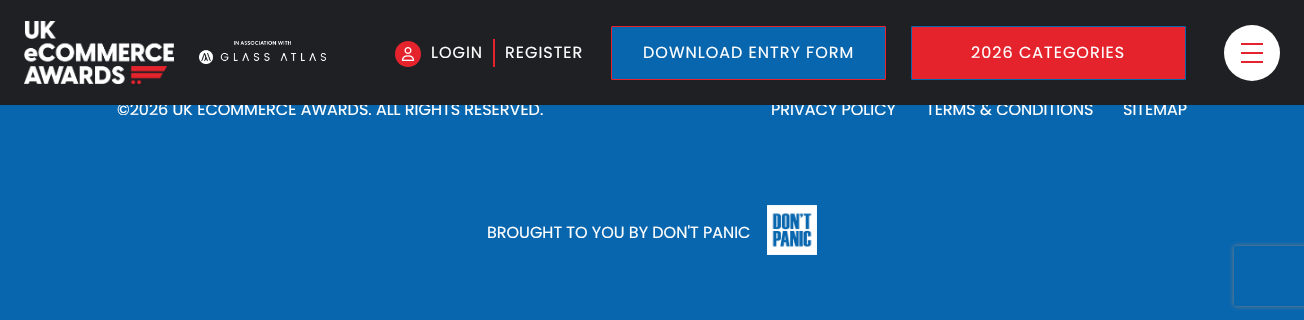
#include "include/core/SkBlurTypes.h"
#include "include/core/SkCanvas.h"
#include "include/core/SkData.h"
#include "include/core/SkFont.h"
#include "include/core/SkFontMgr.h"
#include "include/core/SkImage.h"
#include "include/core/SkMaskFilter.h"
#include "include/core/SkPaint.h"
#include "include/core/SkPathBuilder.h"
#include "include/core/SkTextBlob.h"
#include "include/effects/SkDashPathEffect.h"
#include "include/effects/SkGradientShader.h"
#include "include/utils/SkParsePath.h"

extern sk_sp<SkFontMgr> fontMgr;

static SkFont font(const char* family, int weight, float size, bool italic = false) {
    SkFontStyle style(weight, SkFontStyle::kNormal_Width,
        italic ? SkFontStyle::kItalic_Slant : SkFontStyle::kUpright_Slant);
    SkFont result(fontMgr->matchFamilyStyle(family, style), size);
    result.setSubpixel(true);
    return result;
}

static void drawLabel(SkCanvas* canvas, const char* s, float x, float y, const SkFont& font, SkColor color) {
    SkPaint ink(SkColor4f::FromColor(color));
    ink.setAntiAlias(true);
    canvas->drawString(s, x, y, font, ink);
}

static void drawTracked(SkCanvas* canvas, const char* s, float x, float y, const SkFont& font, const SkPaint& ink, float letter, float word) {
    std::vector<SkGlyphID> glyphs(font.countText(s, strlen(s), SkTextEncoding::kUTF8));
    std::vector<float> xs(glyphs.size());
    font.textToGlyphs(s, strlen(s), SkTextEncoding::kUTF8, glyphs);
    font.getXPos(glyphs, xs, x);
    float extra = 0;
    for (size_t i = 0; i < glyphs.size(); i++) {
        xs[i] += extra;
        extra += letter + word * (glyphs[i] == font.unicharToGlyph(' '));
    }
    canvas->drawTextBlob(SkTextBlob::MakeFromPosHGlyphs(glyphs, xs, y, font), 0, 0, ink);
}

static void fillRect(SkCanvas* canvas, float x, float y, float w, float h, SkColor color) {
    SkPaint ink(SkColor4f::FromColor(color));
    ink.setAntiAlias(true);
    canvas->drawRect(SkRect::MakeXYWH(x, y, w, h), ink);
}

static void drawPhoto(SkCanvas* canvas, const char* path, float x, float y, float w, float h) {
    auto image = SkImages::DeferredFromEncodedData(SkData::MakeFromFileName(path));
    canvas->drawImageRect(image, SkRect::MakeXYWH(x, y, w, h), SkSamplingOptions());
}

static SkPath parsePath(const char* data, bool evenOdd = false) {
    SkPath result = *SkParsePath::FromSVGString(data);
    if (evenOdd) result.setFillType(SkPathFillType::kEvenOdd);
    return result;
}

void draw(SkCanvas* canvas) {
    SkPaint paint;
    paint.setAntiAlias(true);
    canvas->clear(0xFF0866AE);
    SkFont font1 = font("Poppins", 400, 16);
    drawLabel(canvas, "©2026 UK ECOMMERCE AWARDS. ALL RIGHTS RESERVED.", 117, 115, font1, 0xFFFFFFFF);
    drawLabel(canvas, "PRIVACY POLICY", 771, 115, font1, 0xFFFFFFFF);
    drawLabel(canvas, "TERMS & CONDITIONS", 926, 115, font1, 0xFFFFFFFF);
    drawLabel(canvas, "SITEMAP", 1123, 115, font1, 0xFFFFFFFF);
    fillRect(canvas, 0, 0, 1304, 105, 0xFF1E2024);
    drawPhoto(canvas, "assets/img1.png", 24, 21, 150, 63);
    drawPhoto(canvas, "assets/img2.png", 199, 41, 127, 23);
    paint.setColor(0xFFE5232C);
    canvas->drawCircle(408, 54, 13, paint);
    drawPhoto(canvas, "assets/img3.png", 401, 47, 14, 14);
    fillRect(canvas, 493, 39, 2, 28, 0xFFE5232C);
    paint.setColor(0xFFFFFFFF);
    drawTracked(canvas, "LOGIN", 431, 58, font1, paint, 1, 0);
    drawTracked(canvas, "REGISTER", 505, 58, font1, paint, 1, 0);
    paint.setColor(0xFF0866AE);
    canvas->drawRoundRect(SkRect::MakeXYWH(611.5f, 26.5f, 274, 53), 0.5f, 0.5f, paint);
    paint.setStroke(true);
    paint.setStrokeWidth(1);
    paint.setColor(0xFFE5232C);
    canvas->drawRoundRect(SkRect::MakeXYWH(611.5f, 26.5f, 274, 53), 0.5f, 0.5f, paint);
    paint.setStroke(false);
    paint.setColor(0xFFFFFFFF);
    drawTracked(canvas, "DOWNLOAD ENTRY FORM", 643, 58, font1, paint, 1, 0);
    paint.setColor(0xFFE5232C);
    canvas->drawRoundRect(SkRect::MakeXYWH(911.5f, 26.5f, 274, 53), 0.5f, 0.5f, paint);
    paint.setStroke(true);
    paint.setColor(0xFF0866AE);
    canvas->drawRoundRect(SkRect::MakeXYWH(911.5f, 26.5f, 274, 53), 0.5f, 0.5f, paint);
    paint.setStroke(false);
    paint.setColor(0xFFFFFFFF);
    drawTracked(canvas, "2026 CATEGORIES", 971, 58, font1, paint, 1, 0);
    canvas->drawCircle(1252, 53, 28, paint);
    fillRect(canvas, 1241, 43, 22, 2, 0xFFE5232C);
    fillRect(canvas, 1241, 52, 22, 2, 0xFFE5232C);
    fillRect(canvas, 1241, 61, 22, 2, 0xFFE5232C);
    drawLabel(canvas, "BROUGHT TO YOU BY DON'T PANIC", 487, 238, font1, 0xFFFFFFFF);
    drawPhoto(canvas, "assets/img4.png", 767, 205, 50, 50);
    canvas->save();
    canvas->clipPath(parsePath("M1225 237H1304V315H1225ZM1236 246H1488C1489 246 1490 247 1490 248V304C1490 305 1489 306 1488 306H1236C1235 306 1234 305 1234 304V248C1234 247 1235 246 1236 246Z", true), true);
    paint.setColor(0xFF808080);
    paint.setMaskFilter(SkMaskFilter::MakeBlur(kNormal_SkBlurStyle, 2.5f));
    canvas->drawRoundRect(SkRect::MakeXYWH(1234, 246, 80, 60), 2, 2, paint);
    paint.setMaskFilter(nullptr);
    canvas->restore();
}
